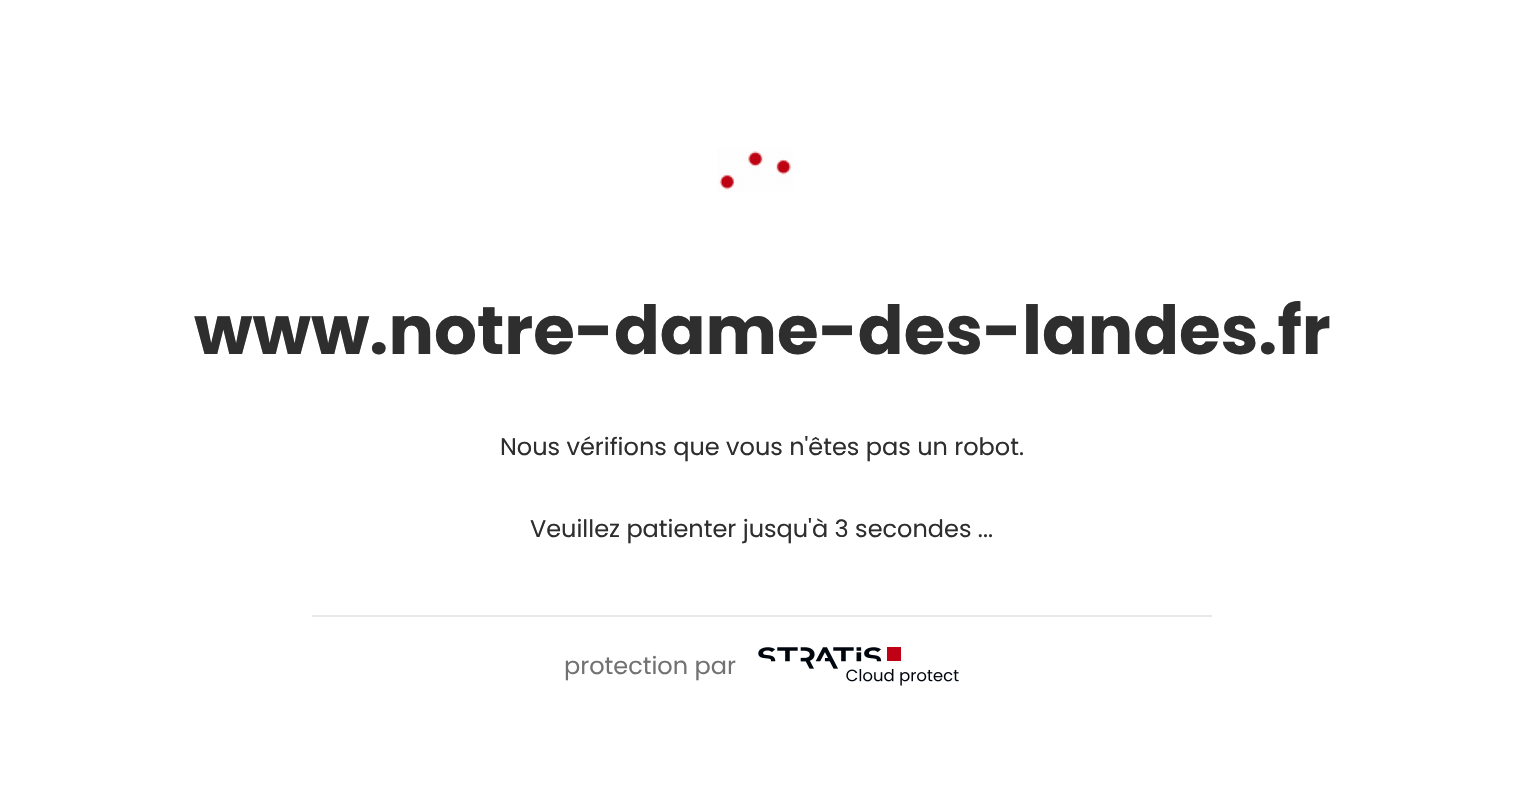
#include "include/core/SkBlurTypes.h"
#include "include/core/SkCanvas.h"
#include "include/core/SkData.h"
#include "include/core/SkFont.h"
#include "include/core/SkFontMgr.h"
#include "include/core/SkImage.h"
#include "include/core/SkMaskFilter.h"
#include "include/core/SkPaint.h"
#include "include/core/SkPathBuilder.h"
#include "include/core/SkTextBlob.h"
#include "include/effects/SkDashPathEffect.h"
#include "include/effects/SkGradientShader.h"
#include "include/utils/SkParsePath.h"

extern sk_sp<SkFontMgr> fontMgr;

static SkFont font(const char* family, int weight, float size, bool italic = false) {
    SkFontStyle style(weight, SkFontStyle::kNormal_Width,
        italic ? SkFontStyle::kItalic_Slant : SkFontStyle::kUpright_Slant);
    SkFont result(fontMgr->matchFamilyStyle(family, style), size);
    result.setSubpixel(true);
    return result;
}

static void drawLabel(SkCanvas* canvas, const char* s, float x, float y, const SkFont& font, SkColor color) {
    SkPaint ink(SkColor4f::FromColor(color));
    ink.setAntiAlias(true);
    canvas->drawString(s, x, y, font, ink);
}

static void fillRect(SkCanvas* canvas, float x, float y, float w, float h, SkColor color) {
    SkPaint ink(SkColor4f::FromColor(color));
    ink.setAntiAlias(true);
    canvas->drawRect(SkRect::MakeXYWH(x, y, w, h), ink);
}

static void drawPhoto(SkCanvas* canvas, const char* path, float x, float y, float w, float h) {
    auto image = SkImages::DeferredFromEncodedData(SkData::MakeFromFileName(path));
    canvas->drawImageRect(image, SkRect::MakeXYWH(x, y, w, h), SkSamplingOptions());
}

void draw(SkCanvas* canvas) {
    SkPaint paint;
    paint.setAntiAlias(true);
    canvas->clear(0xFFFFFFFF);
    drawPhoto(canvas, "assets/img1.png", 717, 149, 76, 43);
    SkFont font1 = font("Poppins", 700, 67.5f);
    drawLabel(canvas, "www.notre-dame-des-landes.fr", 194, 354, font1, 0xFF2E2E2E);
    SkFont font2 = font("Poppins", 400, 24);
    drawLabel(canvas, "Nous vérifions que vous n'êtes pas un robot.", 500, 455, font2, 0xFF2E2E2E);
    drawLabel(canvas, "Veuillez patienter jusqu'à 3 secondes ...", 530, 537, font2, 0xFF2E2E2E);
    fillRect(canvas, 312, 615, 900, 2, 0xFFE8E8E8);
    drawLabel(canvas, "protection par", 564, 674, font2, 0xFF727272);
    drawPhoto(canvas, "assets/img2.png", 758, 647, 201, 39);
}
